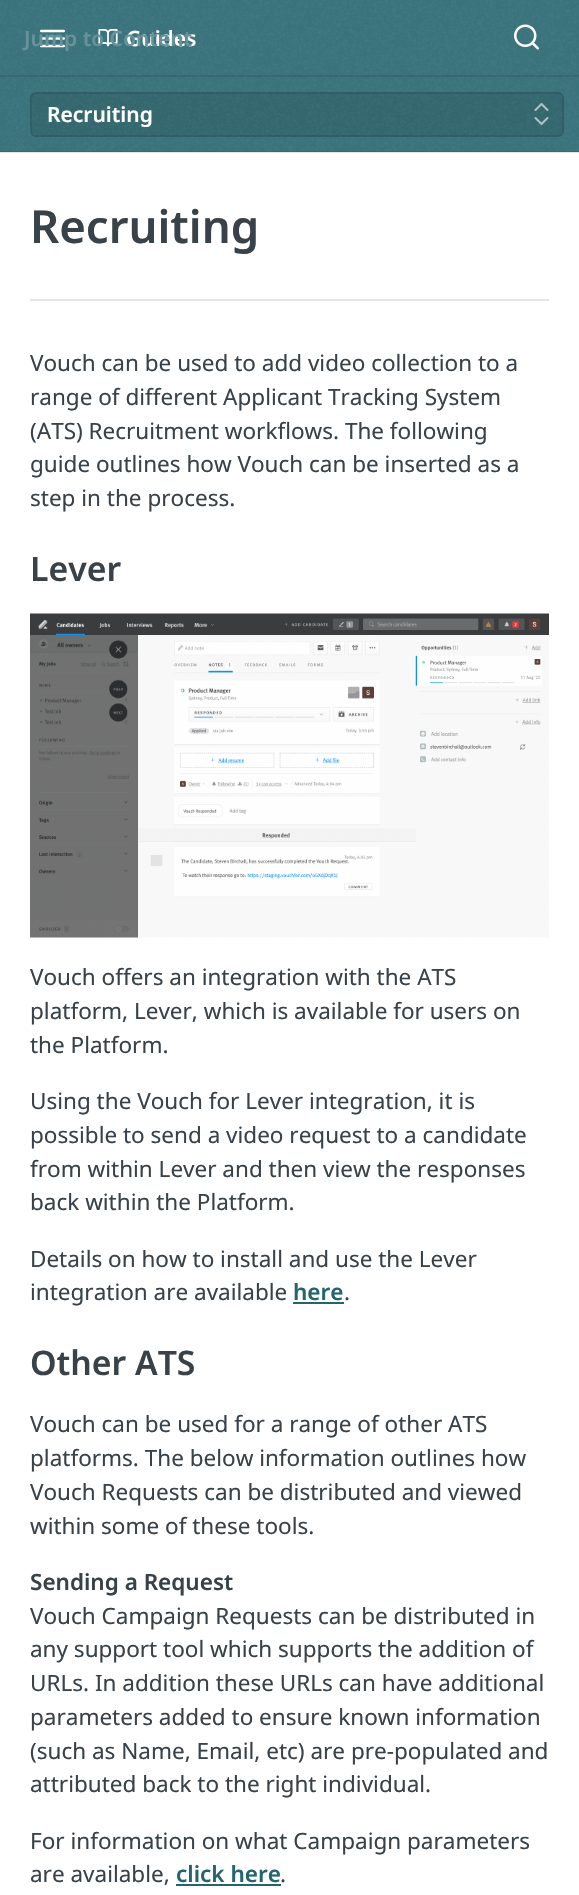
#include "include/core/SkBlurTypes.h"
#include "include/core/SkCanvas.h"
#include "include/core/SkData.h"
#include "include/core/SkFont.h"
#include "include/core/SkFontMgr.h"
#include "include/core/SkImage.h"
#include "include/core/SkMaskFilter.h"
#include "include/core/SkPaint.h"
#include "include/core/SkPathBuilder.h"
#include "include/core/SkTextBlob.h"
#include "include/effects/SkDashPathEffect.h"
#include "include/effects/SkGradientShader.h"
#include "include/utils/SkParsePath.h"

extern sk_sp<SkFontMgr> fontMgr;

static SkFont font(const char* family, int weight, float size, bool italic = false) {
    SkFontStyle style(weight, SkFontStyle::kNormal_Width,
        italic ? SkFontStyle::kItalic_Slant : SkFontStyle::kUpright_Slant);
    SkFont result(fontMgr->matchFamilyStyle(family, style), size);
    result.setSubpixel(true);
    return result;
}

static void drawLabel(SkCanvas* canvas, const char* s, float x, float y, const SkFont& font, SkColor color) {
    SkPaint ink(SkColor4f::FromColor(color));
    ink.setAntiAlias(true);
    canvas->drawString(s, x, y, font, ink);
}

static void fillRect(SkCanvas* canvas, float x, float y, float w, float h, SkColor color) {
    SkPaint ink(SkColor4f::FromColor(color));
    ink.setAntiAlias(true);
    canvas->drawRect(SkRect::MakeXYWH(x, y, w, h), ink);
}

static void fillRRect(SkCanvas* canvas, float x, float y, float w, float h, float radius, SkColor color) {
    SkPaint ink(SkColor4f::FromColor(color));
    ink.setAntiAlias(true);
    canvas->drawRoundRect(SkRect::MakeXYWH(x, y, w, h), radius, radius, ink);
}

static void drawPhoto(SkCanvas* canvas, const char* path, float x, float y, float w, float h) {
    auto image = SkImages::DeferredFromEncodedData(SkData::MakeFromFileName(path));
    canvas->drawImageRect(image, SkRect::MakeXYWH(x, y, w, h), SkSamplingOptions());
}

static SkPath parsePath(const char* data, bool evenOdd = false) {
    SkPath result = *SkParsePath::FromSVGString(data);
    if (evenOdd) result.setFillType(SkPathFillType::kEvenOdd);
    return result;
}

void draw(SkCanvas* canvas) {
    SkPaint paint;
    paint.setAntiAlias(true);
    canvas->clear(0xFFFFFFFF);
    fillRect(canvas, 0, 152, 579, 1, 0xFFE6E6E6);
    fillRect(canvas, 0, 0, 579, 152, 0xFF23646F);
    drawPhoto(canvas, "assets/img1.png", 0, 0, 579, 152);
    fillRect(canvas, 0, 75, 579, 2, 0x1A000000);
    drawPhoto(canvas, "assets/img3.png", 40, 29, 25, 19);
    drawPhoto(canvas, "assets/img4.png", 98, 29, 20, 18);
    SkFont font1 = font("Noto Sans", 600, 21);
    drawLabel(canvas, "Guides", 126, 46, font1, 0xFFFFFFFF);
    drawLabel(canvas, "Jump to Content", 24, 46, font1, 0xFF67929A);
    drawPhoto(canvas, "assets/img2.png", 514, 24, 25, 26);
    fillRRect(canvas, 30, 92, 534, 45, 6, 0x1A000000);
    paint.setStroke(true);
    paint.setStrokeWidth(2);
    paint.setColor(0x1A000000);
    canvas->drawRoundRect(SkRect::MakeXYWH(31, 93, 532, 43), 5, 5, paint);
    drawLabel(canvas, "Recruiting", 47, 122, font1, 0xFFFFFFFF);
    paint.setStrokeCap(SkPaint::kRound_Cap);
    paint.setStrokeJoin(SkPaint::kRound_Join);
    paint.setColor(0x99FFFFFF);
    canvas->drawPath(parsePath("M535.5 118L541.5 124L547.5 118M547.5 110L541.5 104L535.5 110"), paint);
    fillRect(canvas, 30, 299, 519, 2, 0xFFE6E6E6);
    SkFont font2 = font("Noto Sans", 600, 45.5f);
    drawLabel(canvas, "Recruiting", 30, 243, font2, 0xFF384248);
    SkFont font3 = font("Noto Sans", 400, 22.5f);
    drawLabel(canvas, "Vouch can be used to add video collection to a", 30, 371, font3, 0xFF384248);
    drawLabel(canvas, "range of different Applicant Tracking System", 30, 405, font3, 0xFF384248);
    drawLabel(canvas, "(ATS) Recruitment workflows. The following", 30, 439, font3, 0xFF384248);
    drawLabel(canvas, "guide outlines how Vouch can be inserted as a", 30, 472, font3, 0xFF384248);
    drawLabel(canvas, "step in the process.", 30, 506, font3, 0xFF384248);
    SkFont font4 = font("Noto Sans", 600, 33.75f);
    drawLabel(canvas, "Lever", 30, 581, font4, 0xFF384248);
    drawPhoto(canvas, "assets/img5.png", 30, 613, 519, 325);
    drawLabel(canvas, "Vouch offers an integration with the ATS", 30, 985, font3, 0xFF384248);
    drawLabel(canvas, "platform, Lever, which is available for users on", 30, 1019, font3, 0xFF384248);
    drawLabel(canvas, "the Platform.", 30, 1053, font3, 0xFF384248);
    drawLabel(canvas, "Using the Vouch for Lever integration, it is", 30, 1109, font3, 0xFF384248);
    drawLabel(canvas, "possible to send a video request to a candidate", 30, 1143, font3, 0xFF384248);
    drawLabel(canvas, "from within Lever and then view the responses", 30, 1177, font3, 0xFF384248);
    drawLabel(canvas, "back within the Platform.", 30, 1210, font3, 0xFF384248);
    drawLabel(canvas, "Details on how to install and use the Lever", 30, 1267, font3, 0xFF384248);
    drawLabel(canvas, "integration are available", 30, 1300, font3, 0xFF384248);
    SkFont font5 = font("Noto Sans", 600, 22.5f);
    drawLabel(canvas, "here", 293, 1300, font5, 0xFF23646F);
    fillRect(canvas, 293, 1302, 51, 2, 0xFF23646F);
    drawLabel(canvas, ".", 344, 1300, font3, 0xFF384248);
    drawLabel(canvas, "Other ATS", 30, 1375, font4, 0xFF384248);
    drawLabel(canvas, "Vouch can be used for a range of other ATS", 30, 1432, font3, 0xFF384248);
    drawLabel(canvas, "platforms. The below information outlines how", 30, 1466, font3, 0xFF384248);
    drawLabel(canvas, "Vouch Requests can be distributed and viewed", 30, 1500, font3, 0xFF384248);
    drawLabel(canvas, "within some of these tools.", 30, 1534, font3, 0xFF384248);
    drawLabel(canvas, "Sending a Request", 30, 1590, font5, 0xFF384248);
    drawLabel(canvas, "Vouch Campaign Requests can be distributed in", 30, 1624, font3, 0xFF384248);
    drawLabel(canvas, "any support tool which supports the addition of", 30, 1657, font3, 0xFF384248);
    drawLabel(canvas, "URLs. In addition these URLs can have additional", 30, 1691, font3, 0xFF384248);
    drawLabel(canvas, "parameters added to ensure known information", 30, 1725, font3, 0xFF384248);
    drawLabel(canvas, "(such as Name, Email, etc) are pre-populated and", 30, 1759, font3, 0xFF384248);
    drawLabel(canvas, "attributed back to the right individual.", 30, 1792, font3, 0xFF384248);
    drawLabel(canvas, "For information on what Campaign parameters", 30, 1849, font3, 0xFF384248);
    drawLabel(canvas, "are available,", 30, 1882, font3, 0xFF384248);
    drawLabel(canvas, "click here", 176, 1882, font5, 0xFF23646F);
    fillRect(canvas, 176, 1884, 105, 2, 0xFF23646F);
    drawLabel(canvas, ".", 280, 1882, font3, 0xFF384248);
}
